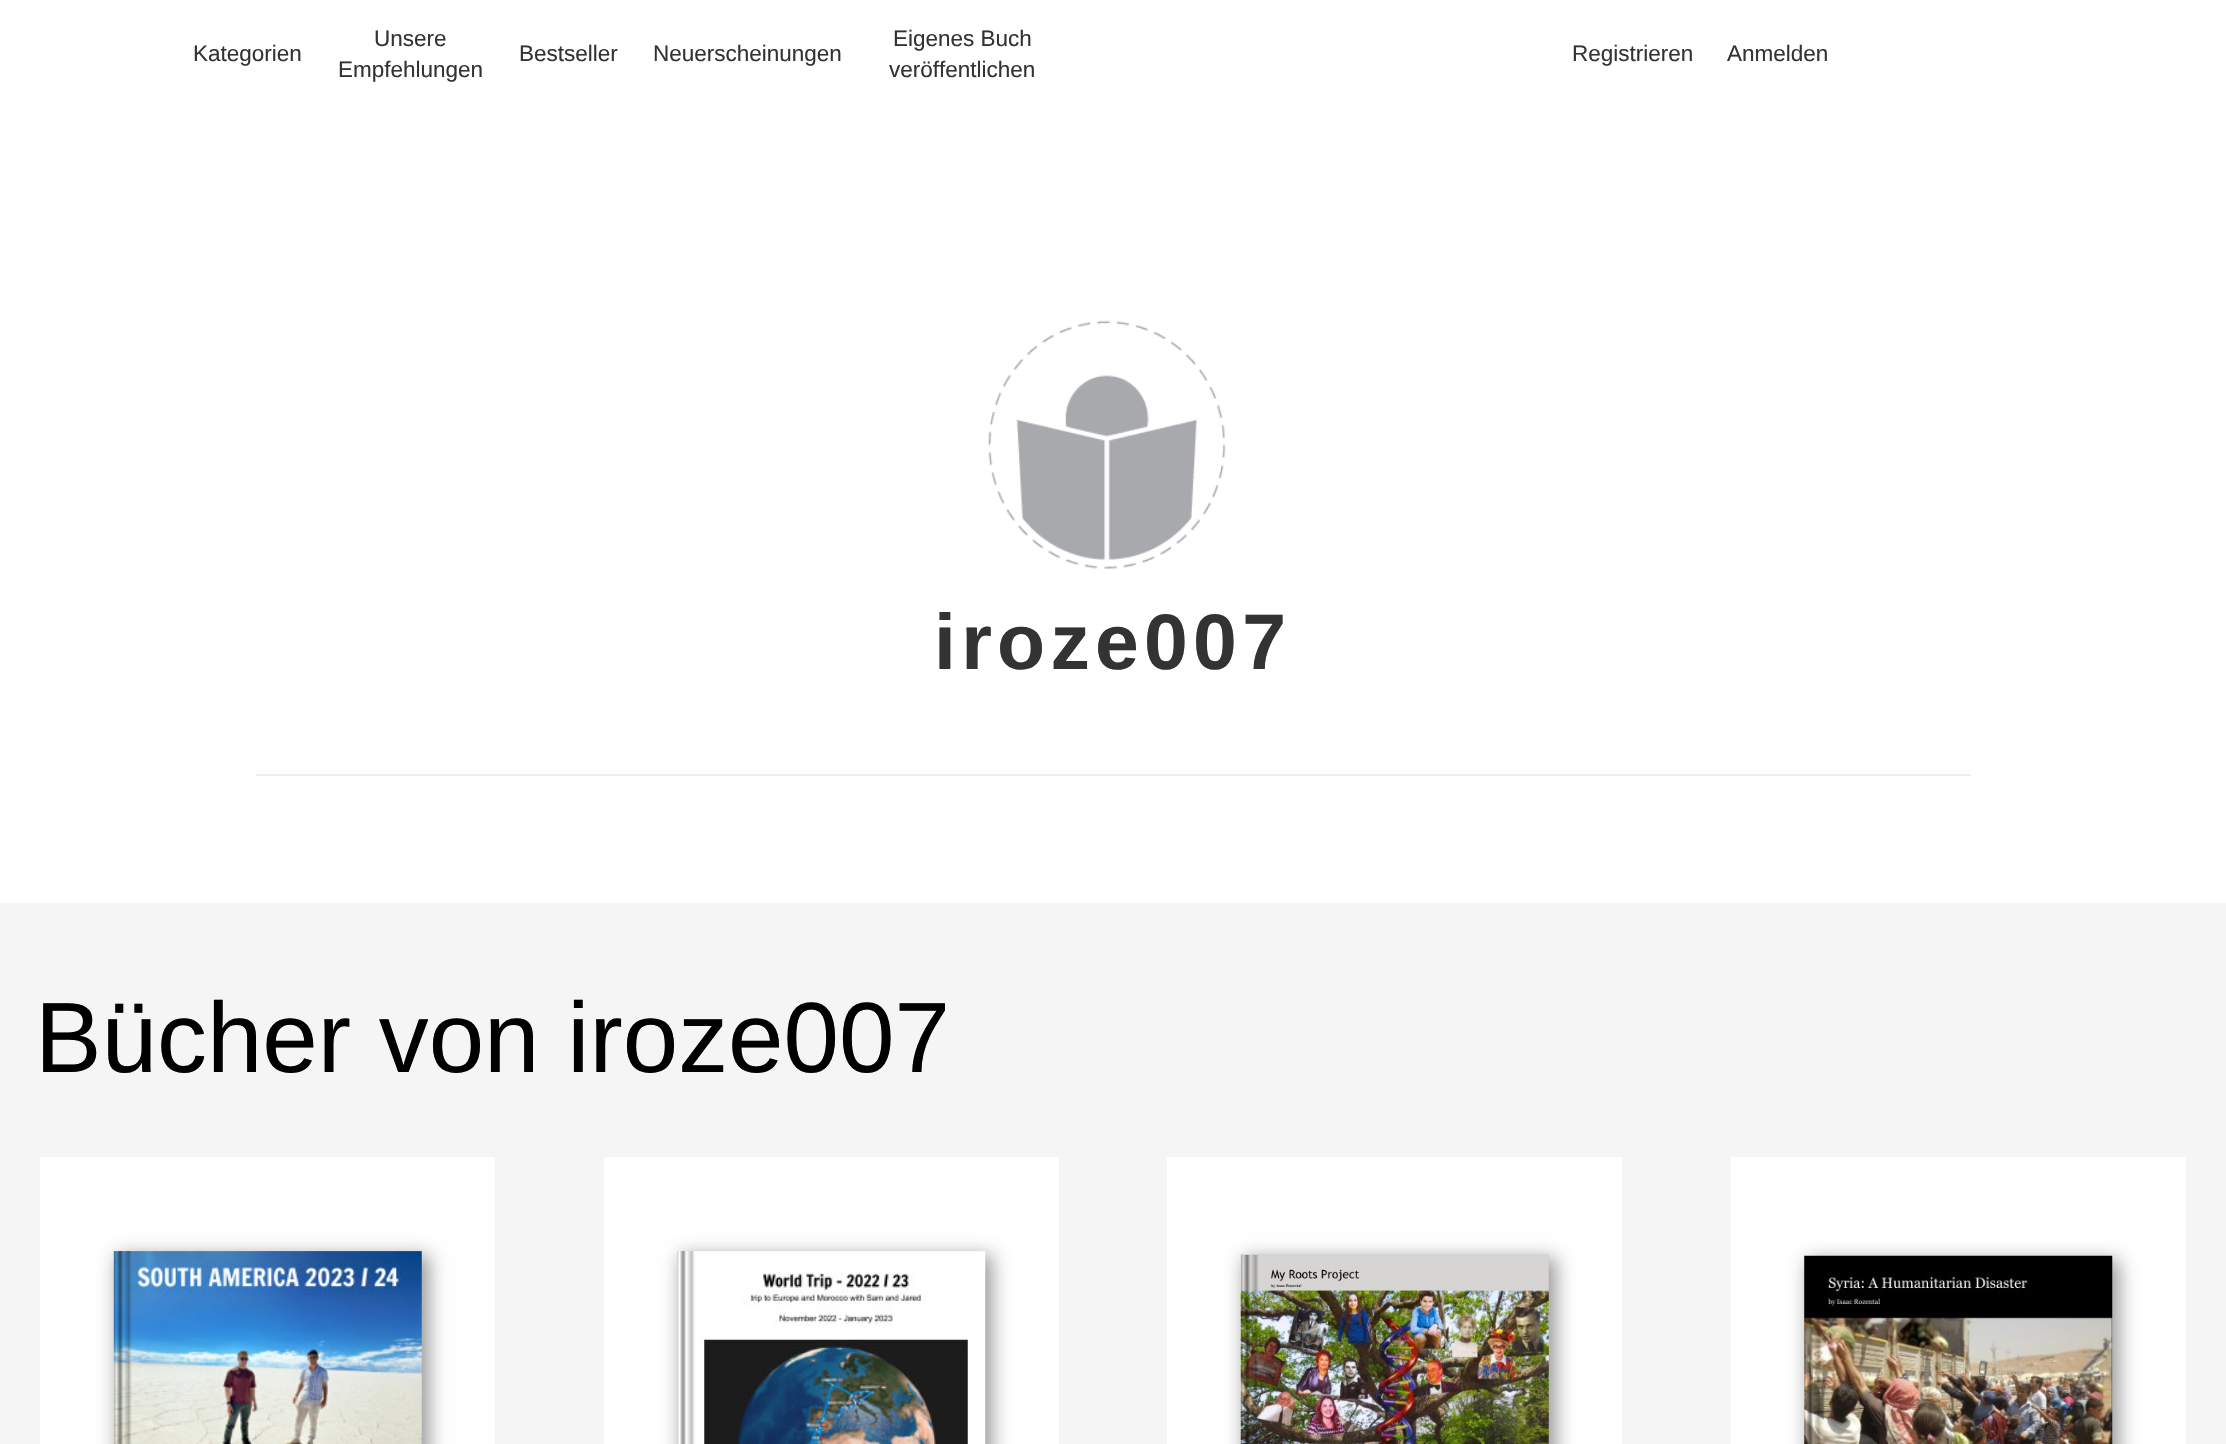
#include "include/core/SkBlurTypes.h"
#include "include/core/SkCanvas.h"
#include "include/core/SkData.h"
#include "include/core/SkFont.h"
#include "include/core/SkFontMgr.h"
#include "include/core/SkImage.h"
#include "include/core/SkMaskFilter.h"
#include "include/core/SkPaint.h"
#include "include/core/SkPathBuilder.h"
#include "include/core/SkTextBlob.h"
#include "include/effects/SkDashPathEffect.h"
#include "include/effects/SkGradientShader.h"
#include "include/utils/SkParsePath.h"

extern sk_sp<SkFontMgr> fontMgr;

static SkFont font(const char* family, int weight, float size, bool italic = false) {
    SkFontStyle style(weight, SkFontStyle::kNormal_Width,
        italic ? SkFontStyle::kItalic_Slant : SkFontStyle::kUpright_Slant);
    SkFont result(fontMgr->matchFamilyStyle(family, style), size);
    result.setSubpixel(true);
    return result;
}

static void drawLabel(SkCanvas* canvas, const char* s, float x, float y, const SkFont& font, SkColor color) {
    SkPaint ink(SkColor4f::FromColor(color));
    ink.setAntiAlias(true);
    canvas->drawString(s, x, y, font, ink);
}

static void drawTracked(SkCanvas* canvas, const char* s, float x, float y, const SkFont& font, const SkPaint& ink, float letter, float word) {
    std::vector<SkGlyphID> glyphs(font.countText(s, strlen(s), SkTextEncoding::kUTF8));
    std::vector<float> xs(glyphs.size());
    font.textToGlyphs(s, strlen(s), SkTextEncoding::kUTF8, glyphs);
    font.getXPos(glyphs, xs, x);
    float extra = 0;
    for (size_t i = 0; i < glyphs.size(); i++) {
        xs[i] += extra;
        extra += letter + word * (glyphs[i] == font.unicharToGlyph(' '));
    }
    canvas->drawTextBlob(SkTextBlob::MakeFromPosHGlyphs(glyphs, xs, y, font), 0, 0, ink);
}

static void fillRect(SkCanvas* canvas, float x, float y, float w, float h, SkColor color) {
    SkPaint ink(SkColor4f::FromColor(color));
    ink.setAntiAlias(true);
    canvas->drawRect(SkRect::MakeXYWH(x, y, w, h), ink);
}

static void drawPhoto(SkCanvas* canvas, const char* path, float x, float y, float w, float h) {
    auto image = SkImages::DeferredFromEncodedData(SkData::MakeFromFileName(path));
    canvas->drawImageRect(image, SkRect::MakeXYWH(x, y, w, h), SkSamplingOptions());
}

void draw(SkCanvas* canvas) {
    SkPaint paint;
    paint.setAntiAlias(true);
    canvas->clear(0xFFFFFFFF);
    SkFont font1 = font("Liberation Sans", 400, 22.5f);
    drawLabel(canvas, "Kategorien", 193, 61, font1, 0xFF333333);
    drawLabel(canvas, "Unsere", 374, 46, font1, 0xFF333333);
    drawLabel(canvas, "Empfehlungen", 338, 77, font1, 0xFF333333);
    drawLabel(canvas, "Bestseller", 519, 61, font1, 0xFF333333);
    drawLabel(canvas, "Neuerscheinungen", 653, 61, font1, 0xFF333333);
    drawLabel(canvas, "Eigenes Buch", 893, 46, font1, 0xFF333333);
    drawLabel(canvas, "veröffentlichen", 889, 77, font1, 0xFF333333);
    drawLabel(canvas, "Registrieren", 1572, 61, font1, 0xFF333333);
    drawLabel(canvas, "Anmelden", 1727, 61, font1, 0xFF333333);
    drawPhoto(canvas, "assets/img1.png", 988, 320, 238, 249);
    SkFont font2 = font("Liberation Sans", 700, 78.75f);
    paint.setColor(0xFF333333);
    drawTracked(canvas, "iroze007", 934, 669, font2, paint, 5.25f, 0);
    fillRect(canvas, 256, 774, 1715, 2, 0xFFEEEEEE);
    fillRect(canvas, 0, 903, 2226, 541, 0xFFF5F5F5);
    SkFont font3 = font("Liberation Sans", 400, 99.75f);
    drawLabel(canvas, "Bücher von iroze007", 35, 1072, font3, 0xFF000000);
    fillRect(canvas, 40, 1157, 455, 287, 0xFFFFFFFF);
    paint.setColor(0xFF999999);
    paint.setMaskFilter(SkMaskFilter::MakeBlur(kNormal_SkBlurStyle, 9));
    canvas->drawRect(SkRect::MakeXYWH(117, 1255, 312, 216), paint);
    paint.setMaskFilter(nullptr);
    drawPhoto(canvas, "assets/img2.png", 113, 1251, 309, 193);
    {
        const SkColor colors[] = {0x33000000, 0x00000000, 0x73000000, 0x00000000, 0x40000000, 0x00000000, 0x00000000};
        const float stops[] = {0, 0.12f, 0.29f, 0.45f, 0.7f, 0.85f, 1};
        const SkPoint ends[] = {{114, 1384}, {135, 1384}};
        paint.setShader(SkGradientShader::MakeLinear(ends, colors, stops, 7, SkTileMode::kClamp));
        paint.setAlpha(255);
    }
    canvas->drawRect(SkRect::MakeXYWH(114, 1251, 18, 193), paint);
    fillRect(canvas, 604, 1157, 455, 287, 0xFFFFFFFF);
    paint.setShader(nullptr);
    paint.setColor(0xFF999999);
    paint.setMaskFilter(SkMaskFilter::MakeBlur(kNormal_SkBlurStyle, 9));
    canvas->drawRect(SkRect::MakeXYWH(681, 1255, 311, 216), paint);
    paint.setMaskFilter(nullptr);
    {
        const SkColor colors[] = {0xFFCCCCCC, 0xFFFFFFFF, 0xFF8C8C8C, 0xFFFFFFFF, 0xFFBFBFBF, 0xFFFFFFFF, 0xFFFFFFFF};
        const float stops[] = {0, 0.12f, 0.29f, 0.45f, 0.7f, 0.85f, 1};
        const SkPoint ends[] = {{677, 1384}, {698, 1384}};
        paint.setShader(SkGradientShader::MakeLinear(ends, colors, stops, 7, SkTileMode::kClamp));
        paint.setAlpha(255);
    }
    canvas->drawRect(SkRect::MakeXYWH(677, 1251, 21, 193), paint);
    drawPhoto(canvas, "assets/img3.png", 698, 1251, 288, 193);
    fillRect(canvas, 1167, 1157, 455, 287, 0xFFFFFFFF);
    paint.setShader(nullptr);
    paint.setColor(0xFF999999);
    paint.setMaskFilter(SkMaskFilter::MakeBlur(kNormal_SkBlurStyle, 9));
    canvas->drawRect(SkRect::MakeXYWH(1244, 1258, 312, 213), paint);
    paint.setMaskFilter(nullptr);
    drawPhoto(canvas, "assets/img4.png", 1240, 1254, 309, 190);
    fillRect(canvas, 1731, 1157, 455, 287, 0xFFFFFFFF);
    paint.setMaskFilter(SkMaskFilter::MakeBlur(kNormal_SkBlurStyle, 9));
    canvas->drawRect(SkRect::MakeXYWH(1808, 1260, 311, 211), paint);
    paint.setMaskFilter(nullptr);
    drawPhoto(canvas, "assets/img5.png", 1804, 1255, 309, 189);
    {
        const SkColor colors[] = {0x33000000, 0x00000000, 0x73000000, 0x00000000, 0x40000000, 0x00000000, 0x00000000};
        const float stops[] = {0, 0.12f, 0.29f, 0.45f, 0.7f, 0.85f, 1};
        const SkPoint ends[] = {{1804, 1384}, {1825, 1384}};
        paint.setShader(SkGradientShader::MakeLinear(ends, colors, stops, 7, SkTileMode::kClamp));
        paint.setAlpha(255);
    }
    canvas->drawRect(SkRect::MakeXYWH(1804, 1257, 18, 187), paint);
}
